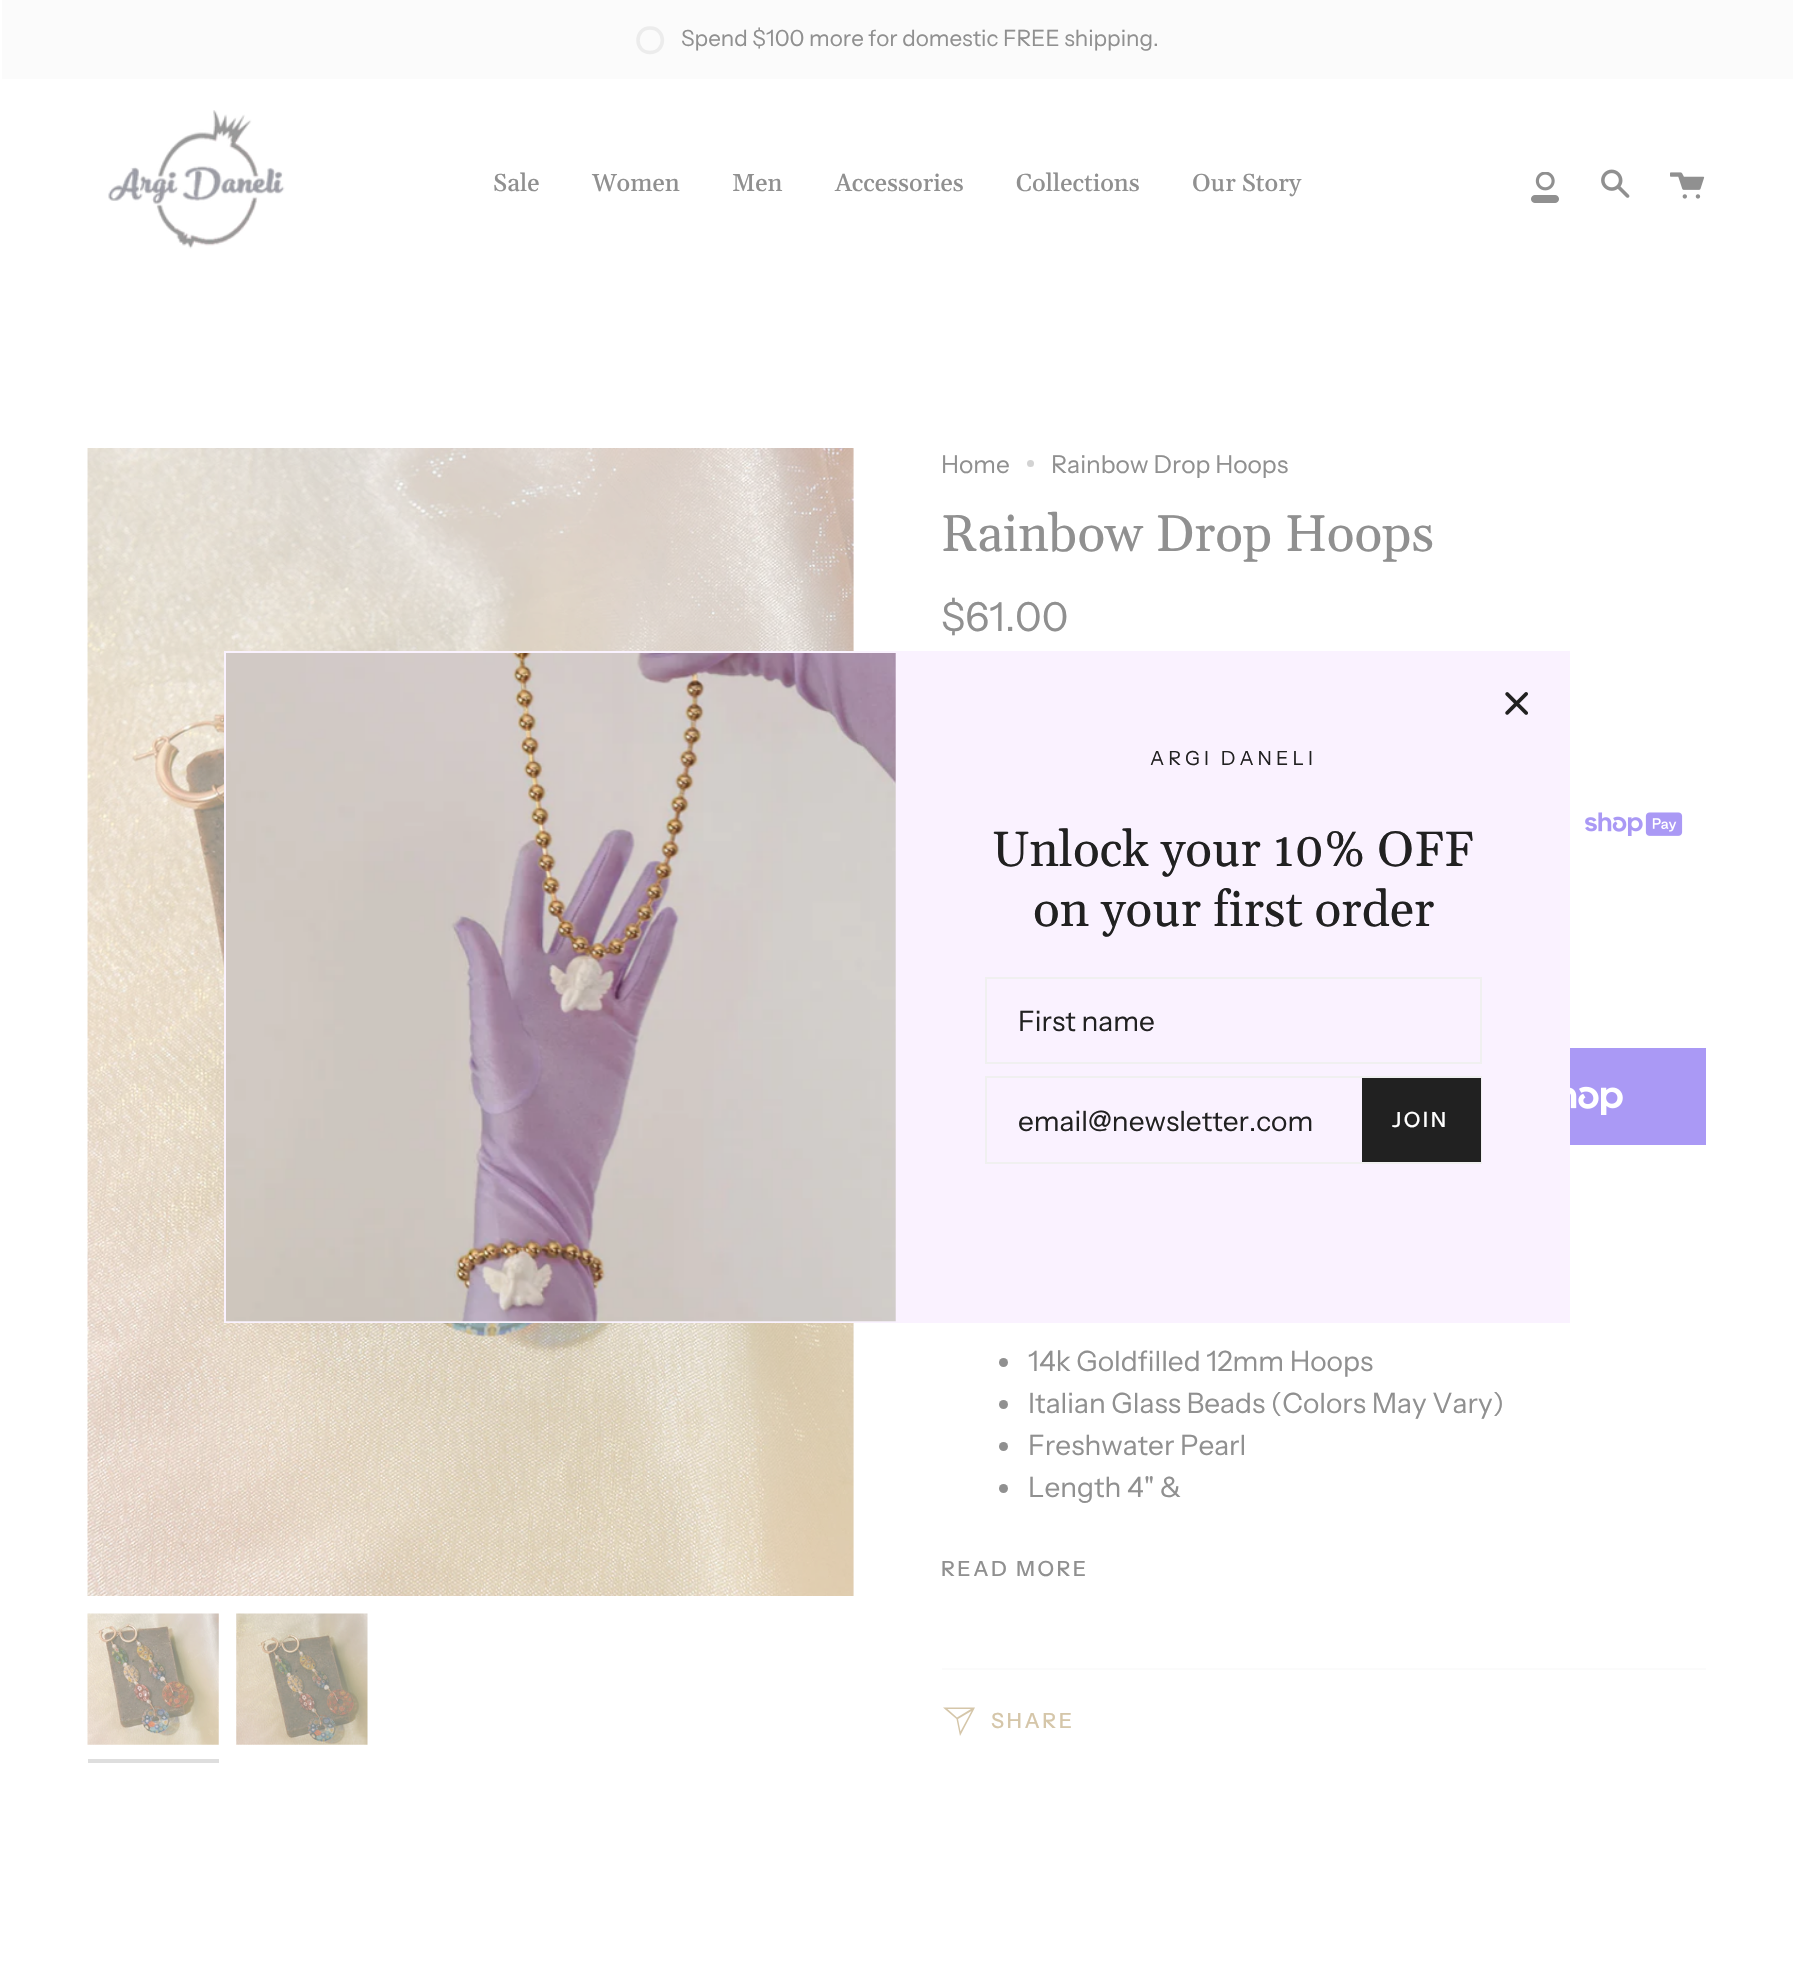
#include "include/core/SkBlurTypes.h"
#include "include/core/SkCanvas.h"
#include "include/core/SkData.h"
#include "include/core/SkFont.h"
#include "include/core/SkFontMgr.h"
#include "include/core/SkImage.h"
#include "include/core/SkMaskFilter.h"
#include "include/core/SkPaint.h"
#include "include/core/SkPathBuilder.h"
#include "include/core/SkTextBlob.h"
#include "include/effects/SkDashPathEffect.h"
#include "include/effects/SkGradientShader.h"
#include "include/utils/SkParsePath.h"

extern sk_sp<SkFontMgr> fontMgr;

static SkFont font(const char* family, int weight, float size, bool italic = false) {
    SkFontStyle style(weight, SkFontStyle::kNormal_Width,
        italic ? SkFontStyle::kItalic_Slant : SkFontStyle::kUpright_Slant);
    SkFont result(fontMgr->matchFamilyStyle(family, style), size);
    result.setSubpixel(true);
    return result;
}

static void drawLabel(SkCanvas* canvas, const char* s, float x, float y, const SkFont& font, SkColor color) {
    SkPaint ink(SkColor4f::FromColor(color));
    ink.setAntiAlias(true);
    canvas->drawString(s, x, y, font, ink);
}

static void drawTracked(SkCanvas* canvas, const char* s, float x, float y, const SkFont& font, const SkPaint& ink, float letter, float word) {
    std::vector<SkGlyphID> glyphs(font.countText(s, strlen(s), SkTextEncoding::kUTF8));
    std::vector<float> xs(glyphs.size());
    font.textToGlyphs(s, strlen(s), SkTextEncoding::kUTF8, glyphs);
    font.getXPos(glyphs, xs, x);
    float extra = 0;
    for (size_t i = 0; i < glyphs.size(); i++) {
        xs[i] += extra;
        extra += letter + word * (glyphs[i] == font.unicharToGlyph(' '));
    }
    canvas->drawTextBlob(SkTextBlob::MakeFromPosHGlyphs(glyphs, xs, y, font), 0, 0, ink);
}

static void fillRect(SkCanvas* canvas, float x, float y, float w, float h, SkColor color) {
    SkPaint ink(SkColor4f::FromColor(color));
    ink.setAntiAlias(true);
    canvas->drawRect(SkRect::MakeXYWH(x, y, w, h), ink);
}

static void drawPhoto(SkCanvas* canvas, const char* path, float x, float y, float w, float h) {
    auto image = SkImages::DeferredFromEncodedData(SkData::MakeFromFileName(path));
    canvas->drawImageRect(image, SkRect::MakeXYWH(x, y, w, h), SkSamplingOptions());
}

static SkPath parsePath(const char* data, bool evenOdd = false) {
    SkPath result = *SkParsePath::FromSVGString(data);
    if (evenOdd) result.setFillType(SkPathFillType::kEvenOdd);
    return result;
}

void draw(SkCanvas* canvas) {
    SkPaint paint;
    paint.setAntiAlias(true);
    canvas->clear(0xFFFFFFFF);
    fillRect(canvas, 2, 0, 1791, 79, 0xFFFBFBFB);
    paint.setStroke(true);
    paint.setStrokeWidth(3.5f);
    paint.setColor(0xFFECECEC);
    canvas->drawPath(parsePath("M650 28C634 28 634 52.5 650 52.5C666.5 52.5 666.5 28 650 28Z"), paint);
    SkFont font1 = font("Instrument Sans", 400, 22.4f);
    drawLabel(canvas, "Spend $100 more for domestic FREE shipping.", 681, 46, font1, 0xFF909090);
    drawPhoto(canvas, "assets/img1.png", 108, 110, 177, 139);
    SkFont font2 = font("Gelasio", 500, 24.5f);
    drawLabel(canvas, "Sale", 493, 191, font2, 0xFF909090);
    drawLabel(canvas, "Women", 592, 191, font2, 0xFF909090);
    drawLabel(canvas, "Men", 732, 191, font2, 0xFF909090);
    drawLabel(canvas, "Accessories", 835, 191, font2, 0xFF909090);
    drawLabel(canvas, "Collections", 1016, 191, font2, 0xFF909090);
    drawLabel(canvas, "Our Story", 1192, 191, font2, 0xFF909090);
    drawPhoto(canvas, "assets/img2.png", 1531, 172, 28, 31);
    drawPhoto(canvas, "assets/img3.png", 1601, 169, 29, 29);
    drawPhoto(canvas, "assets/img4.png", 1670, 172, 35, 27);
    drawPhoto(canvas, "assets/img5.png", 87, 448, 767, 1148);
    drawPhoto(canvas, "assets/img6.png", 87, 1613, 132, 132);
    fillRect(canvas, 88, 1759, 131, 4, 0xFFDEDEDE);
    drawPhoto(canvas, "assets/img7.png", 236, 1613, 132, 132);
    SkFont font3 = font("Instrument Sans", 400, 24.5f);
    drawLabel(canvas, "Home", 941, 473, font3, 0xFF909090);
    paint.setStroke(false);
    paint.setColor(0xFFD3D3D3);
    canvas->drawCircle(1030.5f, 463.5f, 3.5f, paint);
    drawLabel(canvas, "Rainbow Drop Hoops", 1051, 473, font3, 0xFF909090);
    SkFont font4 = font("Gelasio", 400, 51.5f);
    drawLabel(canvas, "Rainbow Drop Hoops", 941, 551, font4, 0xFF909090);
    SkFont font5 = font("Instrument Sans", 400, 40);
    drawLabel(canvas, "$61.00", 941, 631, font5, 0xFF909090);
    drawPhoto(canvas, "assets/img8.png", 1585, 812, 98, 24);
    fillRect(canvas, 1570, 1048, 136, 97, 0xFFAA99F5);
    drawPhoto(canvas, "assets/img9.png", 1570, 1086, 53, 29);
    paint.setColor(0xFF909090);
    canvas->drawCircle(1003.5f, 1362.5f, 4.5f, paint);
    SkFont font6 = font("Instrument Sans", 400, 28);
    drawLabel(canvas, "14k Goldfilled 12mm Hoops", 1028, 1371, font6, 0xFF909090);
    canvas->drawCircle(1003.5f, 1404.5f, 4.5f, paint);
    drawLabel(canvas, "Italian Glass Beads (Colors May Vary)", 1028, 1413, font6, 0xFF909090);
    canvas->drawCircle(1003.5f, 1446.5f, 4.5f, paint);
    drawLabel(canvas, "Freshwater Pearl", 1028, 1455, font6, 0xFF909090);
    canvas->drawCircle(1003.5f, 1488.5f, 4.5f, paint);
    drawLabel(canvas, "Length 4\" &", 1028, 1497, font6, 0xFF909090);
    SkFont font7 = font("Instrument Sans", 500, 21);
    drawTracked(canvas, "READ MORE", 941, 1576, font7, paint, 2.5f, 0);
    fillRect(canvas, 942, 1668, 764, 2, 0xFFFBFBFB);
    paint.setColor(0xFFD5C6A9);
    canvas->drawPath(parsePath("M975 1707.5L960 1736L956.5 1719L943 1707.5ZM971 1709H947.5L957 1717.5ZM971.5 1711L958 1719L960.5 1731.5Z"), paint);
    drawTracked(canvas, "SHARE", 991, 1728, font7, paint, 2.5f, 0);
    fillRect(canvas, 224, 651, 1346, 672, 0xFFFAF2FF);
    drawPhoto(canvas, "assets/img10.png", 1505, 692, 23, 23);
    drawPhoto(canvas, "assets/img11.png", 226, 653, 670, 669);
    SkFont font8 = font("Instrument Sans", 400, 19.5f);
    paint.setColor(0xFF212121);
    drawTracked(canvas, "ARGI DANELI", 1150, 765, font8, paint, 4, 0);
    SkFont font9 = font("Gelasio", 400, 49.6f);
    drawLabel(canvas, "Unlock your 10% OFF", 992, 866, font9, 0xFF212121);
    drawLabel(canvas, "on your first order", 1033, 926, font9, 0xFF212121);
    paint.setStroke(true);
    paint.setStrokeWidth(2);
    paint.setColor(0xFFF0F0F0);
    canvas->drawRect(SkRect::MakeXYWH(986, 978, 495, 85), paint);
    drawLabel(canvas, "First name", 1018, 1031, font6, 0xFF212121);
    canvas->drawRect(SkRect::MakeXYWH(986, 1077, 495, 86), paint);
    canvas->save();
    canvas->clipRect(SkRect::MakeXYWH(1019, 1103, 311, 35));
    drawLabel(canvas, "email@newsletter.com", 1018, 1131, font6, 0xFF212121);
    canvas->restore();
    fillRect(canvas, 1362, 1078, 119, 84, 0xFF212121);
    paint.setStroke(false);
    paint.setColor(0xFFFFFFFF);
    drawTracked(canvas, "JOIN", 1392, 1127, font7, paint, 2.5f, 0);
}
